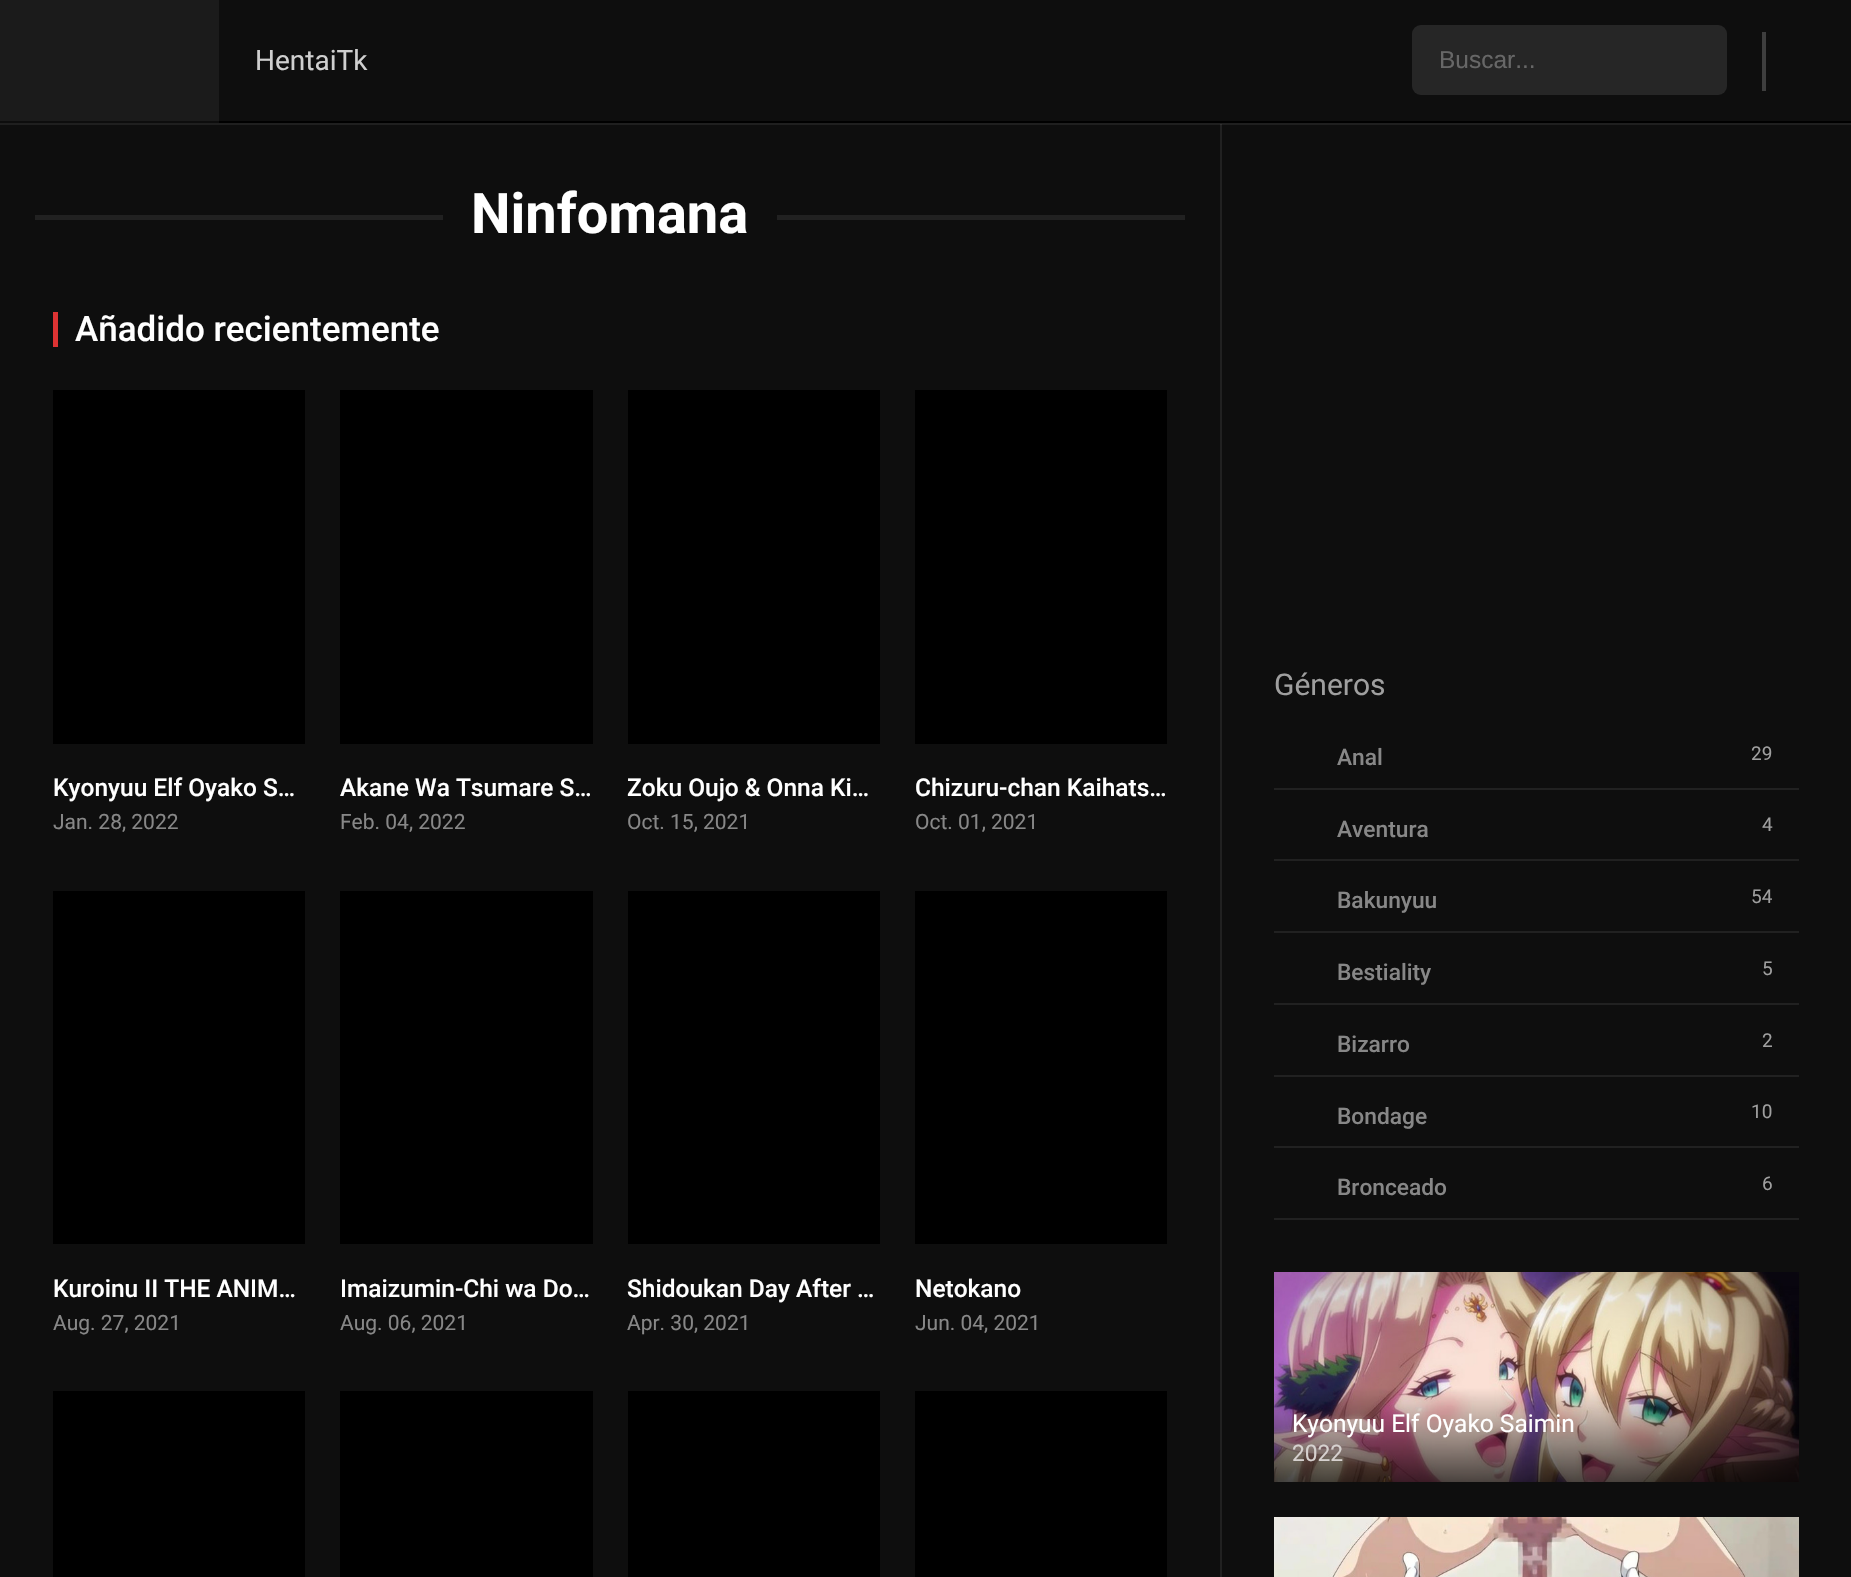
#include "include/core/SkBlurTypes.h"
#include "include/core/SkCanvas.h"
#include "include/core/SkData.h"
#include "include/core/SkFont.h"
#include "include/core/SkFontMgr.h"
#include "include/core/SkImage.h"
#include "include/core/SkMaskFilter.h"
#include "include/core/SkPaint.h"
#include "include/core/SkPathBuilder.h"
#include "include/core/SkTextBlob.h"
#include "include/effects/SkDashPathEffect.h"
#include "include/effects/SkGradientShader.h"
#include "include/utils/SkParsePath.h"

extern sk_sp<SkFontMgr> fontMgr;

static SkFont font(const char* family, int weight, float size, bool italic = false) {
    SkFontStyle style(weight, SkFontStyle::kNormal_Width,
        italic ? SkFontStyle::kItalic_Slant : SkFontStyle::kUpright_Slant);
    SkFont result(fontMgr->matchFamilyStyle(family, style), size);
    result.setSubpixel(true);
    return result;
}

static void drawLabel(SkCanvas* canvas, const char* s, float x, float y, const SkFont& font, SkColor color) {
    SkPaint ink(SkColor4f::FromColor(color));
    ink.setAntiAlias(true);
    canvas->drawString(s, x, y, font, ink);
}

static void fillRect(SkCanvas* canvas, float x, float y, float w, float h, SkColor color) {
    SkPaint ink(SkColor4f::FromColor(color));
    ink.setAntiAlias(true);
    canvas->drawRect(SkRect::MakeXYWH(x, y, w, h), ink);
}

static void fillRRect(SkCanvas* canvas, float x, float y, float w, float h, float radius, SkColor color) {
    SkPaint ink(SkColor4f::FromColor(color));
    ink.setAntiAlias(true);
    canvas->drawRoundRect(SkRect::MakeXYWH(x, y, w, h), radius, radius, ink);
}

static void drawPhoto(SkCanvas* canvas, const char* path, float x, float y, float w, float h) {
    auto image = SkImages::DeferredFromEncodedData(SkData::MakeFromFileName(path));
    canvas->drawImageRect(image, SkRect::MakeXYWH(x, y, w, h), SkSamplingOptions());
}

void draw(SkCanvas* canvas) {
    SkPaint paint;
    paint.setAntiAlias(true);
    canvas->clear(0xFF0E0E0E);
    fillRect(canvas, 0, 121, 1851, 2, 0xFF000000);
    fillRect(canvas, 0, 0, 219, 123, 0x0DFFFFFF);
    SkFont font1 = font("Roboto", 400, 28);
    drawLabel(canvas, "HentaiTk", 255, 70, font1, 0xFFCFCFCF);
    fillRRect(canvas, 1412, 25, 315, 70, 9, 0xFF262626);
    SkFont font2 = font("Liberation Sans", 400, 24.5f);
    drawLabel(canvas, "Buscar...", 1439, 68, font2, 0xFF676767);
    fillRect(canvas, 1762, 32, 4, 59, 0xFF3E3E3E);
    fillRect(canvas, 1220, 124, 2, 1453, 0xFF212121);
    fillRect(canvas, 0, 123, 1851, 2, 0xFF1F1F1F);
    fillRect(canvas, 1220, 124, 2, 1, 0xFF313131);
    fillRect(canvas, 35, 215, 408, 5, 0xFF212121);
    SkFont font3 = font("Roboto", 700, 56);
    drawLabel(canvas, "Ninfomana", 471, 233, font3, 0xFFFFFFFF);
    fillRect(canvas, 777, 215, 408, 5, 0xFF212121);
    fillRect(canvas, 53, 312, 5, 35, 0xFFDD3333);
    SkFont font4 = font("Roboto", 500, 35);
    drawLabel(canvas, "Añadido recientemente", 75, 341, font4, 0xFFFFFFFF);
    fillRect(canvas, 53, 390, 252, 354, 0xFF000000);
    SkFont font5 = font("Roboto", 500, 24.5f);
    drawLabel(canvas, "Kyonyuu Elf Oyako S…", 53, 796, font5, 0xFFFFFFFF);
    SkFont font6 = font("Roboto", 400, 21);
    drawLabel(canvas, "Jan. 28, 2022", 53, 829, font6, 0xFF878787);
    fillRect(canvas, 340, 390, 253, 354, 0xFF000000);
    drawLabel(canvas, "Akane Wa Tsumare S…", 340, 796, font5, 0xFFFFFFFF);
    drawLabel(canvas, "Feb. 04, 2022", 340, 829, font6, 0xFF878787);
    fillRect(canvas, 628, 390, 252, 354, 0xFF000000);
    drawLabel(canvas, "Zoku Oujo & Onna Ki…", 627, 796, font5, 0xFFFFFFFF);
    drawLabel(canvas, "Oct. 15, 2021", 627, 829, font6, 0xFF878787);
    fillRect(canvas, 915, 390, 252, 354, 0xFF000000);
    drawLabel(canvas, "Chizuru-chan Kaihats…", 915, 796, font5, 0xFFFFFFFF);
    drawLabel(canvas, "Oct. 01, 2021", 915, 829, font6, 0xFF878787);
    fillRect(canvas, 53, 891, 252, 353, 0xFF000000);
    drawLabel(canvas, "Kuroinu II THE ANIM…", 53, 1297, font5, 0xFFFFFFFF);
    drawLabel(canvas, "Aug. 27, 2021", 53, 1330, font6, 0xFF878787);
    fillRect(canvas, 340, 891, 253, 353, 0xFF000000);
    drawLabel(canvas, "Imaizumin-Chi wa Do…", 340, 1297, font5, 0xFFFFFFFF);
    drawLabel(canvas, "Aug. 06, 2021", 340, 1330, font6, 0xFF878787);
    fillRect(canvas, 628, 891, 252, 353, 0xFF000000);
    drawLabel(canvas, "Shidoukan Day After …", 627, 1297, font5, 0xFFFFFFFF);
    drawLabel(canvas, "Apr. 30, 2021", 627, 1330, font6, 0xFF878787);
    fillRect(canvas, 915, 891, 252, 353, 0xFF000000);
    drawLabel(canvas, "Netokano", 915, 1297, font5, 0xFFFFFFFF);
    drawLabel(canvas, "Jun. 04, 2021", 915, 1330, font6, 0xFF878787);
    fillRect(canvas, 53, 1391, 252, 186, 0xFF000000);
    fillRect(canvas, 340, 1391, 253, 186, 0xFF000000);
    fillRect(canvas, 628, 1391, 252, 186, 0xFF000000);
    fillRect(canvas, 915, 1391, 252, 186, 0xFF000000);
    SkFont font7 = font("Roboto", 400, 30);
    drawLabel(canvas, "Géneros", 1274, 695, font7, 0xFF9F9F9F);
    fillRect(canvas, 1274, 788, 525, 2, 0xFF212121);
    SkFont font8 = font("Roboto", 500, 22.75f);
    drawLabel(canvas, "Anal", 1337, 765, font8, 0xFF878787);
    SkFont font9 = font("Roboto", 400, 19);
    drawLabel(canvas, "29", 1751, 760, font9, 0xFF9F9F9F);
    fillRect(canvas, 1274, 859, 525, 2, 0xFF212121);
    drawLabel(canvas, "Aventura", 1337, 837, font8, 0xFF878787);
    drawLabel(canvas, "4", 1762, 831, font9, 0xFF9F9F9F);
    fillRect(canvas, 1274, 931, 525, 2, 0xFF212121);
    drawLabel(canvas, "Bakunyuu", 1337, 908, font8, 0xFF878787);
    drawLabel(canvas, "54", 1751, 903, font9, 0xFF9F9F9F);
    fillRect(canvas, 1274, 1003, 525, 2, 0xFF212121);
    drawLabel(canvas, "Bestiality", 1337, 980, font8, 0xFF878787);
    drawLabel(canvas, "5", 1762, 975, font9, 0xFF9F9F9F);
    fillRect(canvas, 1274, 1075, 525, 2, 0xFF212121);
    drawLabel(canvas, "Bizarro", 1337, 1052, font8, 0xFF878787);
    drawLabel(canvas, "2", 1762, 1047, font9, 0xFF9F9F9F);
    fillRect(canvas, 1274, 1146, 525, 2, 0xFF212121);
    drawLabel(canvas, "Bondage", 1337, 1124, font8, 0xFF878787);
    drawLabel(canvas, "10", 1751, 1118, font9, 0xFF9F9F9F);
    fillRect(canvas, 1274, 1218, 525, 2, 0xFF212121);
    drawLabel(canvas, "Bronceado", 1337, 1195, font8, 0xFF878787);
    drawLabel(canvas, "6", 1762, 1190, font9, 0xFF9F9F9F);
    drawPhoto(canvas, "assets/img1.png", 1274, 1272, 525, 210);
    SkFont font10 = font("Roboto", 400, 24.5f);
    drawLabel(canvas, "Kyonyuu Elf Oyako Saimin", 1292, 1432, font10, 0xFFFFFFFF);
    SkFont font11 = font("Roboto", 400, 22.75f);
    drawLabel(canvas, "2022", 1292, 1461, font11, 0xFFD6D1CF);
    drawPhoto(canvas, "assets/img2.png", 1274, 1517, 525, 60);
}
